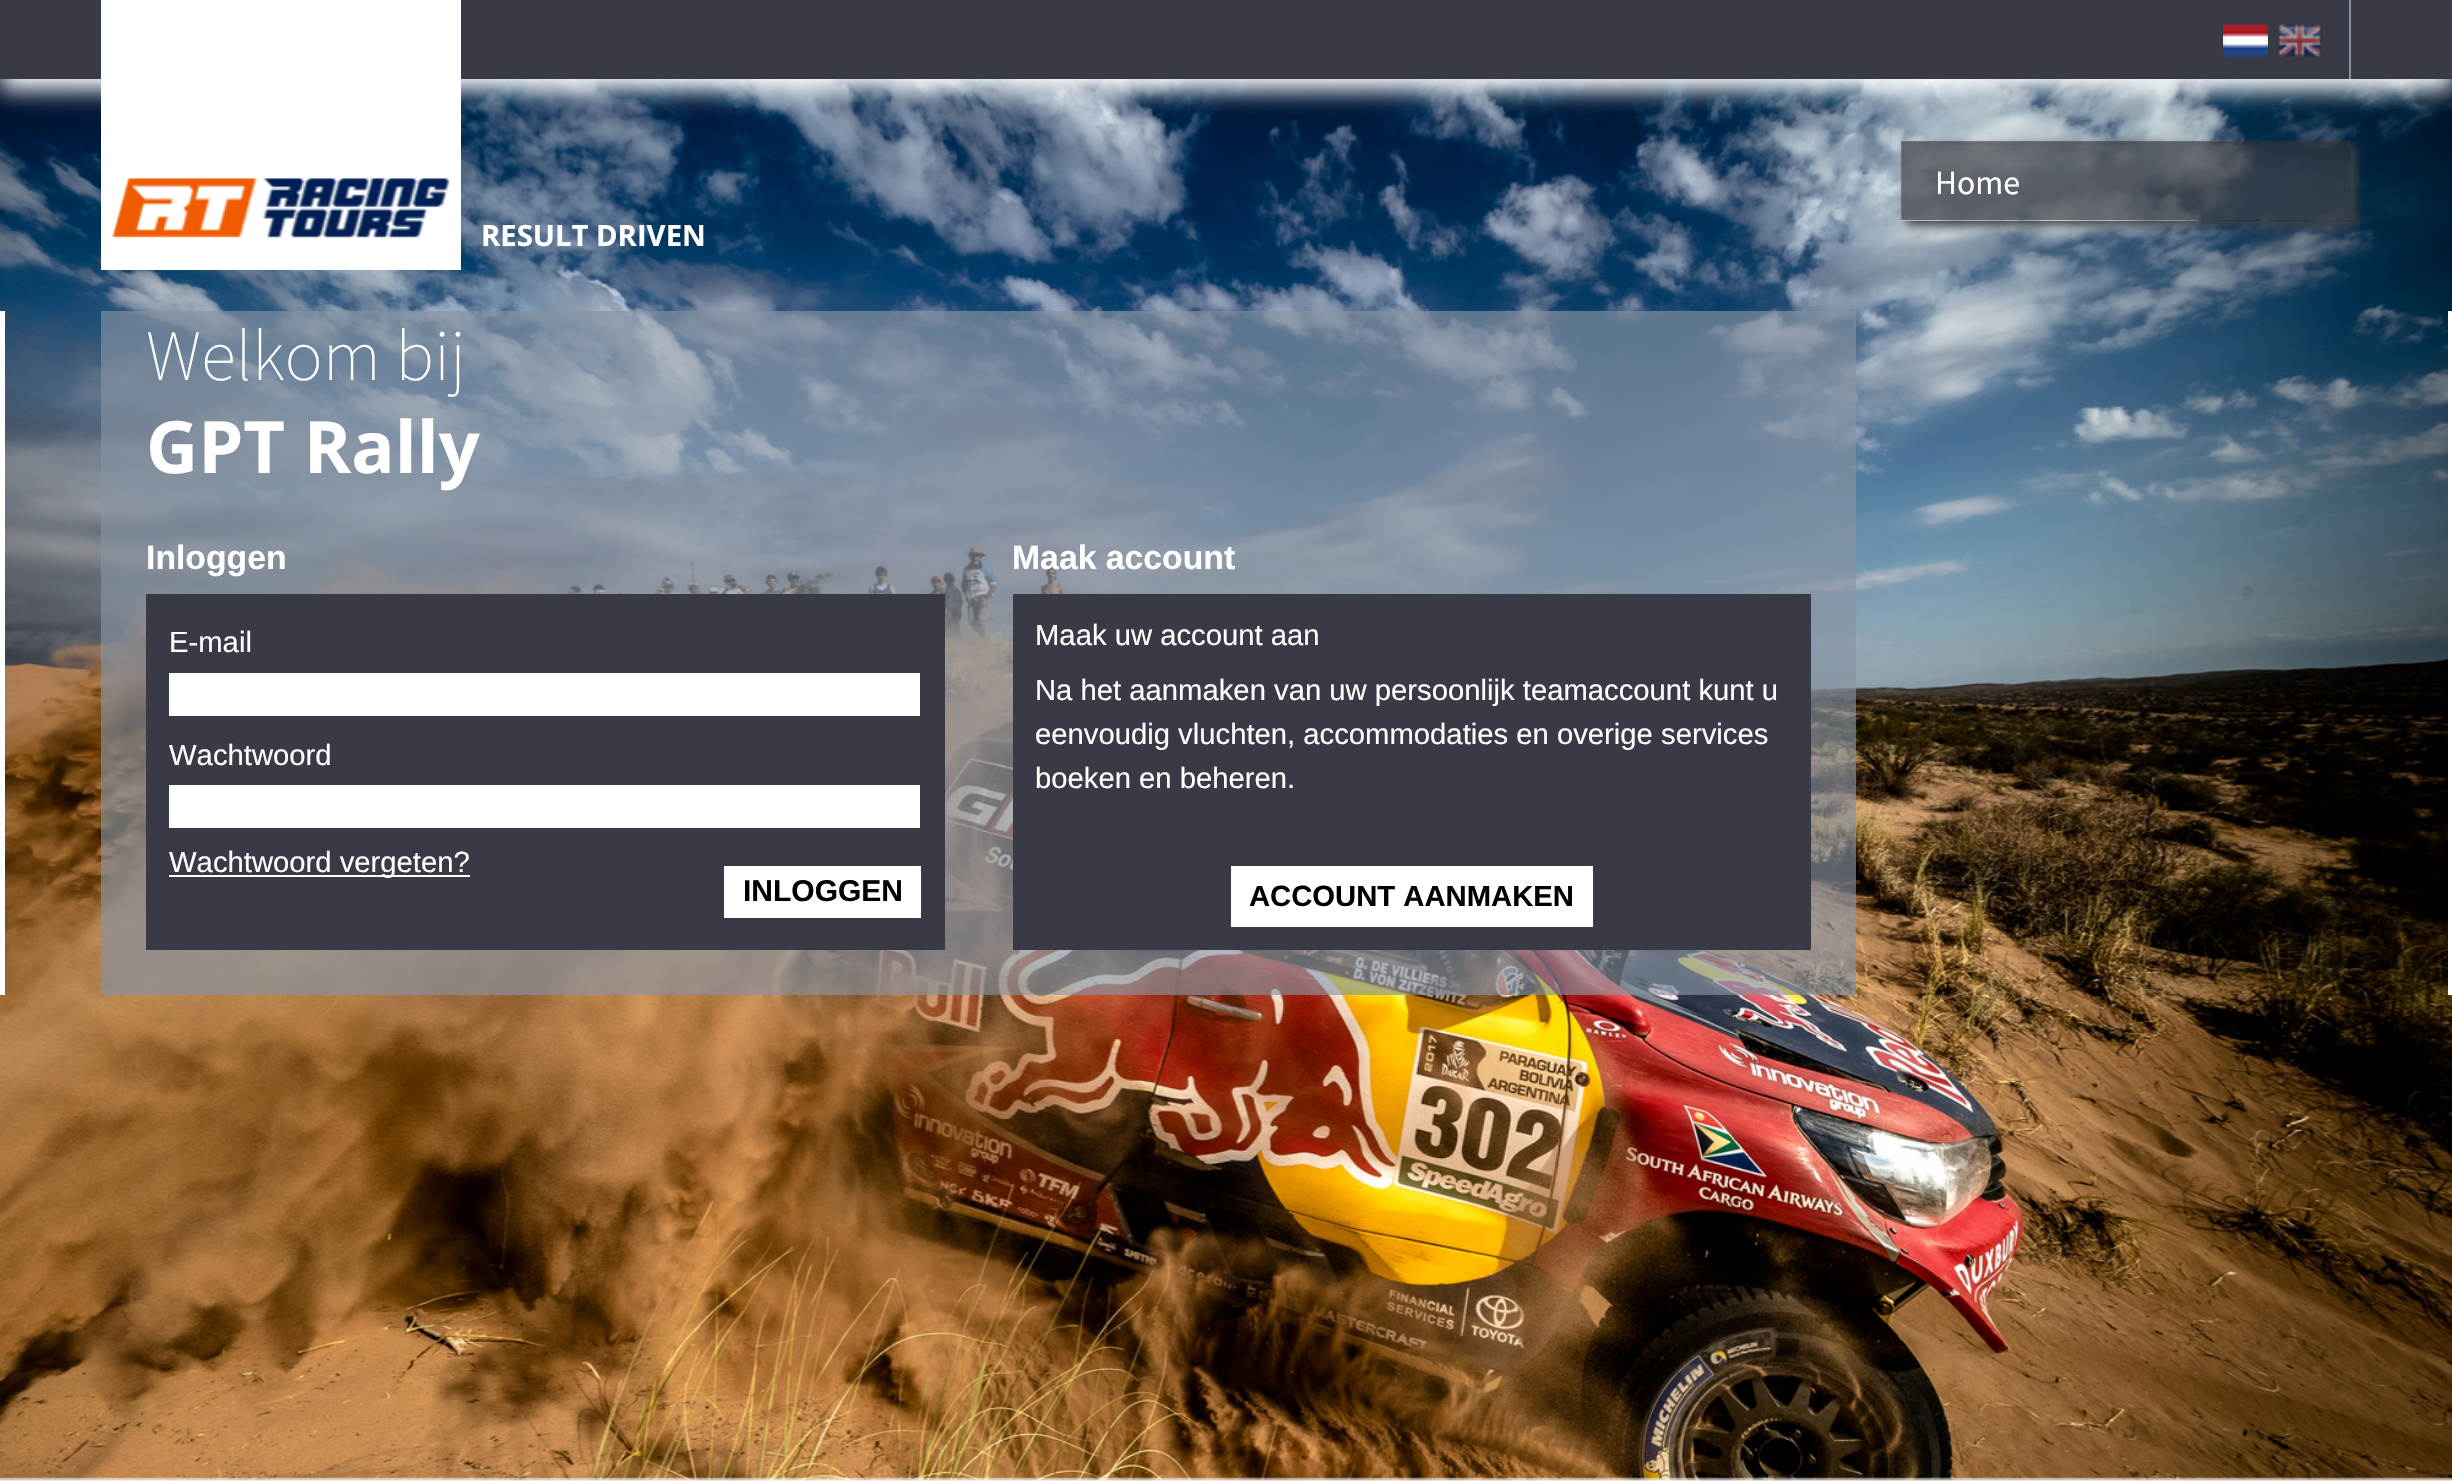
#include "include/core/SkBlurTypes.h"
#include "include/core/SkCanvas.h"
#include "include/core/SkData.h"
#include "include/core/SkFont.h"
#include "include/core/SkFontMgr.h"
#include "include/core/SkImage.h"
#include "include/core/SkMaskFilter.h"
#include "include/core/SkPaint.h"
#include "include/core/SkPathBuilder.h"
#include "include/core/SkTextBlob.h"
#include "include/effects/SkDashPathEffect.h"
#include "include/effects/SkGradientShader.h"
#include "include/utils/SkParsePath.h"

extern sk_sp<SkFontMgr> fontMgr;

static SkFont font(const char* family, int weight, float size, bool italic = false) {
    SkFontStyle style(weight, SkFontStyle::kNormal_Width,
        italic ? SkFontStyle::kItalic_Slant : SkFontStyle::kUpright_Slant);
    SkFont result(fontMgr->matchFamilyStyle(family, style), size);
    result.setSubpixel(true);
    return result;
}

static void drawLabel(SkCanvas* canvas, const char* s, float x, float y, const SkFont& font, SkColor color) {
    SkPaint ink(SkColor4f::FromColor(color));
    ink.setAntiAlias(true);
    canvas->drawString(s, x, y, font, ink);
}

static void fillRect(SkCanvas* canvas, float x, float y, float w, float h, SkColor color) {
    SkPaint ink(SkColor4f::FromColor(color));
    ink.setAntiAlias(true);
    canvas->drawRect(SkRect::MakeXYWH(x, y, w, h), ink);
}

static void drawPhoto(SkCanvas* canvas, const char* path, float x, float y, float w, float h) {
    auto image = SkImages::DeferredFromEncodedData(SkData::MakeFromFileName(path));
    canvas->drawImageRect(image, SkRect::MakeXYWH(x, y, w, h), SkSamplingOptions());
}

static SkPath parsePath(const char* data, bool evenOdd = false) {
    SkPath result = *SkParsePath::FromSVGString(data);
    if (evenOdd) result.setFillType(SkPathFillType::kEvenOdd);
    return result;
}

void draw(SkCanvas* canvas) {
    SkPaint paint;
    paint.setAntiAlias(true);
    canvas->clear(0xFFFFFFFF);
    drawPhoto(canvas, "assets/img1.png", 0, 79, 2452, 1402);
    canvas->save();
    canvas->clipPath(parsePath("M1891 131H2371V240H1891ZM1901 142H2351V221H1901Z", true), true);
    paint.setColor(0xFF404040);
    paint.setMaskFilter(SkMaskFilter::MakeBlur(kNormal_SkBlurStyle, 4.5f));
    canvas->drawRect(SkRect::MakeXYWH(1906, 146, 450, 79), paint);
    paint.setMaskFilter(nullptr);
    canvas->restore();
    drawPhoto(canvas, "assets/img2.png", 1901, 141, 451, 79);
    SkFont font1 = font("Source Sans Pro", 400, 33.75f);
    drawLabel(canvas, "Home", 1935, 194, font1, 0xFFFFFFFF);
    fillRect(canvas, 101, 311, 1755, 684, 0xA68692A1);
    SkFont font2 = font("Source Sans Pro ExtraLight", 200, 72);
    drawLabel(canvas, "Welkom bij", 146, 380, font2, 0xFFFFFFFF);
    SkFont font3 = font("Open Sans", 700, 72);
    drawLabel(canvas, "GPT Rally", 146, 473, font3, 0xFFFFFFFF);
    SkFont font4 = font("Liberation Sans", 700, 33.75f);
    drawLabel(canvas, "Inloggen", 146, 569, font4, 0xFFFFFFFF);
    fillRect(canvas, 146, 594, 799, 356, 0xFF383B45);
    SkFont font5 = font("Liberation Sans", 400, 29.25f);
    drawLabel(canvas, "E-mail", 169, 652, font5, 0xFFFFFFFF);
    fillRect(canvas, 169, 673, 751, 43, 0xFFFFFFFF);
    drawLabel(canvas, "Wachtwoord", 169, 765, font5, 0xFFFFFFFF);
    fillRect(canvas, 169, 785, 751, 43, 0xFFFFFFFF);
    fillRect(canvas, 169, 875, 301, 2, 0xFFFFFFFF);
    drawLabel(canvas, "Wachtwoord vergeten?", 169, 872, font5, 0xFFFFFFFF);
    fillRect(canvas, 724, 866, 197, 52, 0xFFFFFFFF);
    SkFont font6 = font("Liberation Sans", 700, 30);
    drawLabel(canvas, "INLOGGEN", 743, 901, font6, 0xFF000000);
    drawLabel(canvas, "Maak account", 1012, 569, font4, 0xFFFFFFFF);
    fillRect(canvas, 1013, 594, 798, 356, 0xFF383B45);
    drawLabel(canvas, "Maak uw account aan", 1035, 645, font5, 0xFFFFFFFF);
    drawLabel(canvas, "Na het aanmaken van uw persoonlijk teamaccount kunt u", 1035, 700, font5, 0xFFFFFFFF);
    drawLabel(canvas, "eenvoudig vluchten, accommodaties en overige services", 1035, 744, font5, 0xFFFFFFFF);
    drawLabel(canvas, "boeken en beheren.", 1035, 788, font5, 0xFFFFFFFF);
    fillRect(canvas, 1231, 866, 362, 61, 0xFFFFFFFF);
    SkFont font7 = font("Liberation Sans", 700, 29.25f);
    drawLabel(canvas, "ACCOUNT AANMAKEN", 1249, 906, font7, 0xFF000000);
    paint.setColor(0xFFFFFFFF);
    paint.setMaskFilter(SkMaskFilter::MakeBlur(kNormal_SkBlurStyle, 11));
    canvas->drawRect(SkRect::MakeXYWH(0, 11, 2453, 79), paint);
    paint.setMaskFilter(nullptr);
    fillRect(canvas, 0, 0, 2452, 79, 0xFF383B45);
    fillRect(canvas, 2349, 0, 2, 79, 0xFF8692A1);
    drawPhoto(canvas, "assets/img3.png", 2223, 24, 45, 33);
    drawPhoto(canvas, "assets/img4.png", 2277, 24, 45, 33);
    fillRect(canvas, 101, 0, 360, 270, 0xFFFFFFFF);
    drawPhoto(canvas, "assets/img5.png", 112, 178, 338, 60);
    SkFont font8 = font("Open Sans", 700, 29.25f);
    drawLabel(canvas, "RESULT DRIVEN", 481, 246, font8, 0xFFFFFFFF);
    fillRect(canvas, 0, 311, 5, 684, 0xFFFFFFFF);
    fillRect(canvas, 2448, 311, 4, 684, 0xFFFFFFFF);
    drawPhoto(canvas, "assets/img6.png", 0, 1477, 2452, 4);
}
